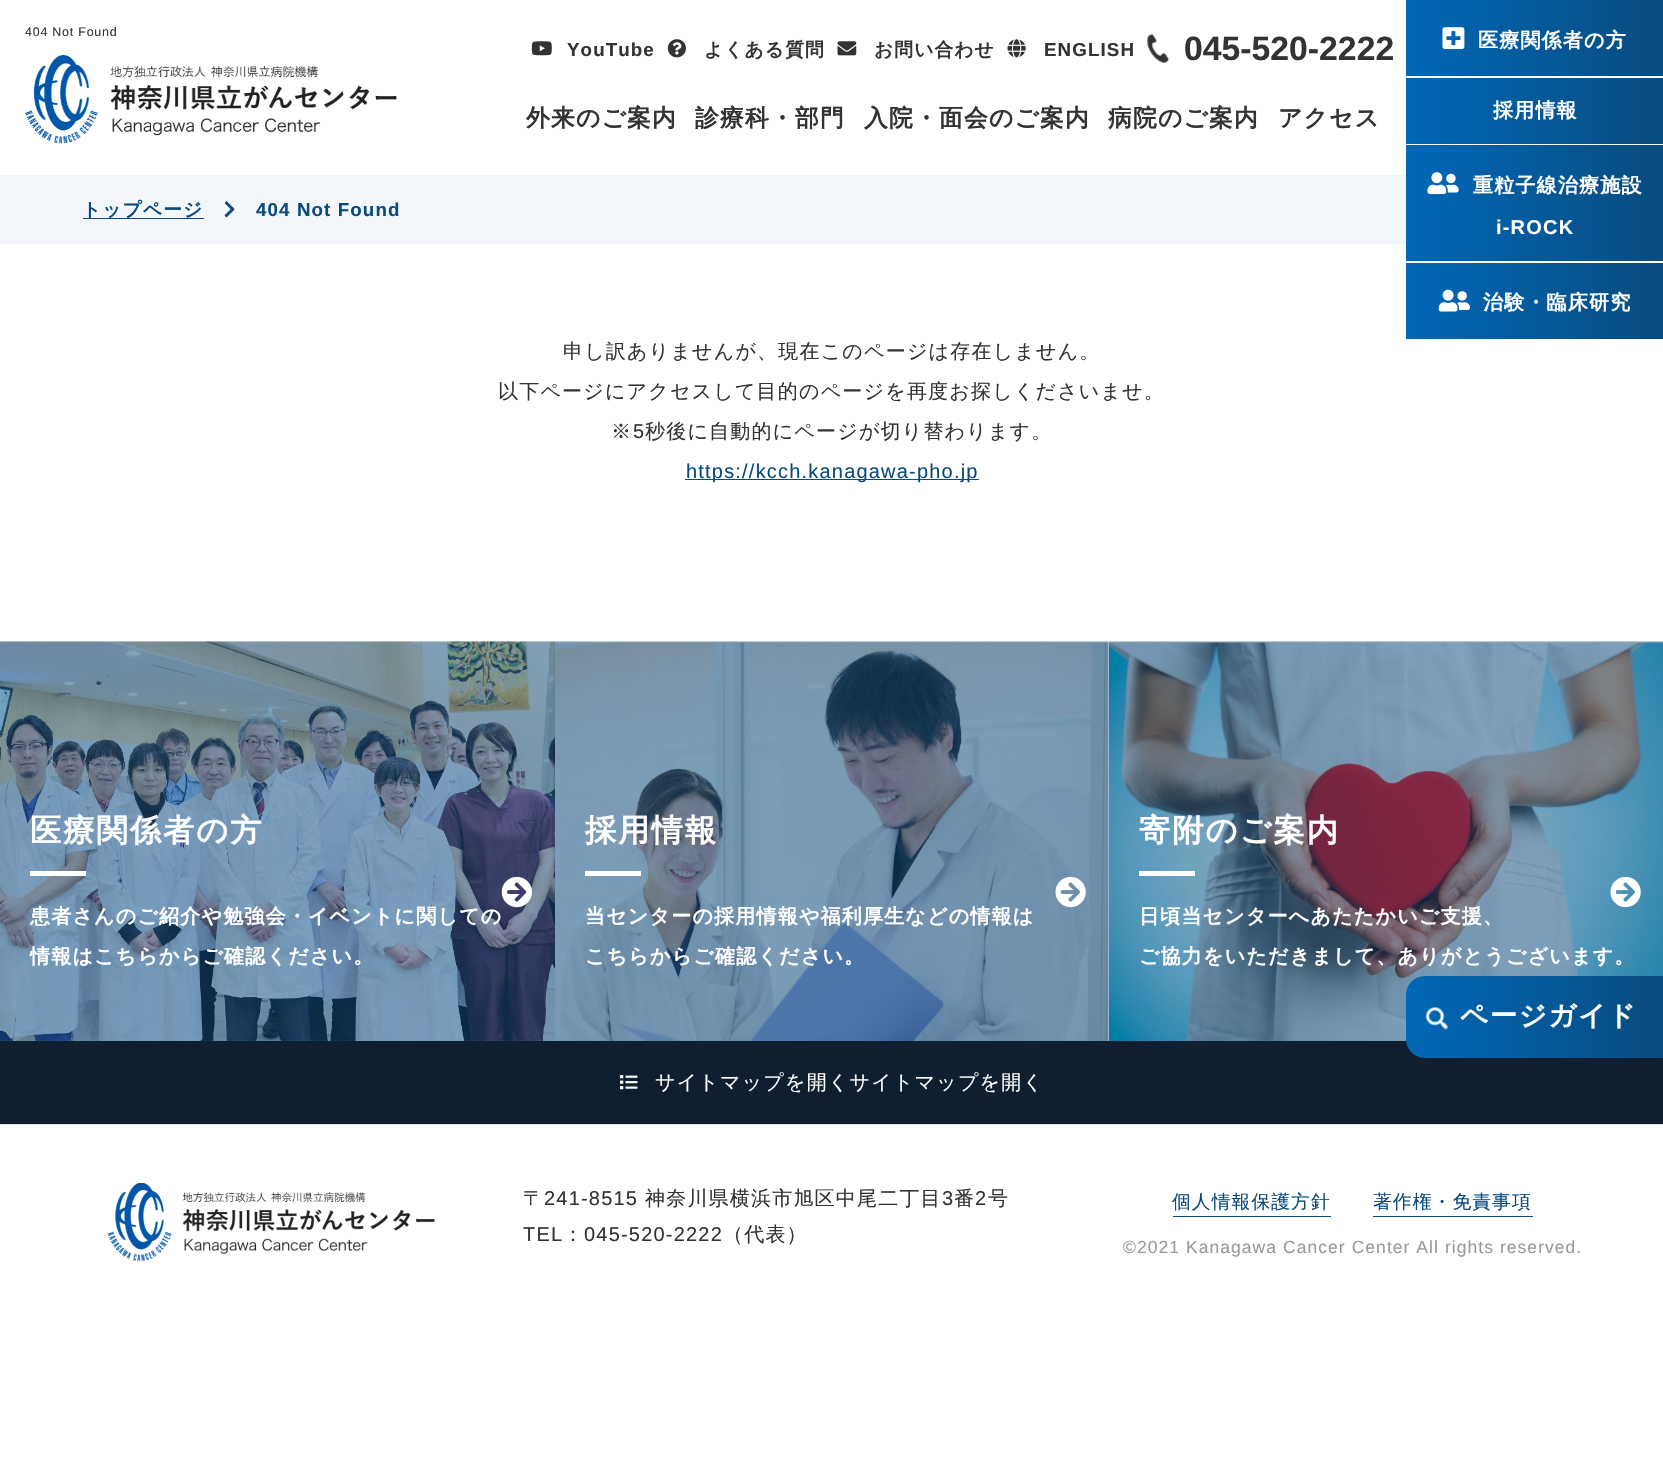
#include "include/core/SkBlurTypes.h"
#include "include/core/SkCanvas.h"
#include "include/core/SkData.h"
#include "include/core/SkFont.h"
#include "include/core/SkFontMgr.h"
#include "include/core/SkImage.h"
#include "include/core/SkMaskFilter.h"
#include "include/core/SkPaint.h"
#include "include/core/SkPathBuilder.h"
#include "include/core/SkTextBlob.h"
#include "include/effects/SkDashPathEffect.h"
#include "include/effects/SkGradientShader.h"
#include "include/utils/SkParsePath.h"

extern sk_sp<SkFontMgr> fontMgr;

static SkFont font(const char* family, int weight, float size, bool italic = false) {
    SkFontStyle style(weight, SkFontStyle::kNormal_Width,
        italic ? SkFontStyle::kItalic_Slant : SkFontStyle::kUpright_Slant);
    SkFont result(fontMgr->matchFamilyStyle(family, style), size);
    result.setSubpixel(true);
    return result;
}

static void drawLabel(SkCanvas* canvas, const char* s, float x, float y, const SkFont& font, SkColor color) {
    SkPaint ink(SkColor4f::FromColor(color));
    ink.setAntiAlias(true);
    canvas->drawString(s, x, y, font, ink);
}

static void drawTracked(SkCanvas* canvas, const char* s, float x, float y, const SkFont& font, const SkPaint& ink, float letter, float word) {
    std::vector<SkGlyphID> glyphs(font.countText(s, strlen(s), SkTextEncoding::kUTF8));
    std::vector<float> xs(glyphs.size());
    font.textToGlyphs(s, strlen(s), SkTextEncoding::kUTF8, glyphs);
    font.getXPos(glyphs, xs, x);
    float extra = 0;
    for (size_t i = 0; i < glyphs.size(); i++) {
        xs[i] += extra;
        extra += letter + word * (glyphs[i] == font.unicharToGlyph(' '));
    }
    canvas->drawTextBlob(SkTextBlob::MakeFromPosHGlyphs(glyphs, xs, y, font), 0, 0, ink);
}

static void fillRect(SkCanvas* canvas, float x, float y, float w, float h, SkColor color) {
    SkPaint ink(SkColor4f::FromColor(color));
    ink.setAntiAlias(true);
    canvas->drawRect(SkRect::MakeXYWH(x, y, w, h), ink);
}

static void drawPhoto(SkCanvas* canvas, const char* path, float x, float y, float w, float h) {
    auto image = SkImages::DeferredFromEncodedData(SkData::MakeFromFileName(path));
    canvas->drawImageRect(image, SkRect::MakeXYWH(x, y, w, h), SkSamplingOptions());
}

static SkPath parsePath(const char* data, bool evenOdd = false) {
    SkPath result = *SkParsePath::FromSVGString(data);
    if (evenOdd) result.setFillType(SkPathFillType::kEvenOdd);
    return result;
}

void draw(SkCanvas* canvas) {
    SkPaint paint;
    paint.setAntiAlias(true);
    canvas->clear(0xFFFFFFFF);
    SkFont font1 = font("Liberation Sans", 400, 12.5f);
    paint.setColor(0xFF333333);
    drawTracked(canvas, "404 Not Found", 25, 36, font1, paint, 0.75f, 0);
    drawPhoto(canvas, "assets/img1.png", 25, 55, 372, 89);
    drawPhoto(canvas, "assets/img2.png", 531, 41, 21, 15);
    SkFont font2 = font("Liberation Sans", 700, 18.75f);
    drawTracked(canvas, "YouTube", 567, 56, font2, paint, 1.1f, 0);
    drawPhoto(canvas, "assets/img3.png", 667, 39, 19, 19);
    SkFont font3 = font("WenQuanYi Zen Hei", 700, 18.75f);
    drawTracked(canvas, "よくある質問", 704, 56, font3, paint, 1.1f, 0);
    drawPhoto(canvas, "assets/img4.png", 837, 41, 20, 15);
    drawTracked(canvas, "お問い合わせ", 874, 56, font3, paint, 1.1f, 0);
    drawPhoto(canvas, "assets/img5.png", 1007, 39, 19, 19);
    drawTracked(canvas, "ENGLISH", 1044, 56, font2, paint, 1.1f, 0);
    drawPhoto(canvas, "assets/img6.png", 1147, 33, 23, 30);
    SkFont font4 = font("Liberation Sans", 700, 33.75f);
    drawLabel(canvas, "045-520-2222", 1184, 60, font4, 0xFF333333);
    {
        const SkColor colors[] = {0xFF0068B7, 0xFF094B7E};
        const float stops[] = {0, 1};
        const SkPoint ends[] = {{1406, 38}, {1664, 38}};
        paint.setShader(SkGradientShader::MakeLinear(ends, colors, stops, 2, SkTileMode::kClamp));
        paint.setAlpha(255);
    }
    canvas->drawRect(SkRect::MakeXYWH(1406, 0, 257, 76), paint);
    drawPhoto(canvas, "assets/img7.png", 1442, 27, 23, 23);
    SkFont font5 = font("WenQuanYi Zen Hei", 700, 20);
    paint.setShader(nullptr);
    paint.setColor(0xFFFFFFFF);
    drawTracked(canvas, "医療関係者の方", 1478, 47, font5, paint, 1.2f, 0);
    {
        const SkColor colors[] = {0xFF0068B7, 0xFF094B7E};
        const float stops[] = {0, 1};
        const SkPoint ends[] = {{1406, 111}, {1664, 111}};
        paint.setShader(SkGradientShader::MakeLinear(ends, colors, stops, 2, SkTileMode::kClamp));
        paint.setAlpha(255);
    }
    canvas->drawRect(SkRect::MakeXYWH(1406, 78, 257, 66), paint);
    paint.setShader(nullptr);
    paint.setColor(0xFFFFFFFF);
    drawTracked(canvas, "採用情報", 1493, 117, font5, paint, 1.2f, 0);
    {
        const SkColor colors[] = {0xFF0068B7, 0xFF094B7E};
        const float stops[] = {0, 1};
        const SkPoint ends[] = {{1406, 203}, {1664, 203}};
        paint.setShader(SkGradientShader::MakeLinear(ends, colors, stops, 2, SkTileMode::kClamp));
        paint.setAlpha(255);
    }
    canvas->drawRect(SkRect::MakeXYWH(1406, 145, 257, 116), paint);
    drawPhoto(canvas, "assets/img8.png", 1427, 172, 32, 23);
    paint.setShader(nullptr);
    paint.setColor(0xFFFFFFFF);
    drawTracked(canvas, "重粒子線治療施設", 1473, 192, font5, paint, 1.2f, 0);
    SkFont font6 = font("Liberation Sans", 700, 20);
    drawTracked(canvas, "i-ROCK", 1496, 234, font6, paint, 1.2f, 0);
    {
        const SkColor colors[] = {0xFF0068B7, 0xFF094B7E};
        const float stops[] = {0, 1};
        const SkPoint ends[] = {{1406, 301}, {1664, 301}};
        paint.setShader(SkGradientShader::MakeLinear(ends, colors, stops, 2, SkTileMode::kClamp));
        paint.setAlpha(255);
    }
    canvas->drawRect(SkRect::MakeXYWH(1406, 263, 257, 76), paint);
    drawPhoto(canvas, "assets/img9.png", 1438, 289, 32, 23);
    paint.setShader(nullptr);
    paint.setColor(0xFFFFFFFF);
    drawTracked(canvas, "治験・臨床研究", 1483, 309, font5, paint, 1.2f, 0);
    SkFont font7 = font("WenQuanYi Zen Hei", 700, 23.75f);
    paint.setColor(0xFF333333);
    drawTracked(canvas, "外来のご案内", 526, 126, font7, paint, 1.25f, 0);
    drawTracked(canvas, "診療科・部門", 695, 126, font7, paint, 1.25f, 0);
    drawTracked(canvas, "入院・面会のご案内", 864, 126, font7, paint, 1.25f, 0);
    drawTracked(canvas, "病院のご案内", 1108, 126, font7, paint, 1.25f, 0);
    drawTracked(canvas, "アクセス", 1278, 126, font7, paint, 1.25f, 0);
    fillRect(canvas, 0, 175, 1406, 69, 0xFFF3F7FB);
    fillRect(canvas, 83, 218, 121, 1, 0xFF094B7E);
    paint.setColor(0xFF094B7E);
    drawTracked(canvas, "トップページ", 82, 216, font3, paint, 1.1f, 0);
    drawPhoto(canvas, "assets/img10.png", 224, 201, 11, 17);
    drawTracked(canvas, "404 Not Found", 256, 216, font2, paint, 1.1f, 0);
    SkFont font8 = font("WenQuanYi Zen Hei", 500, 20);
    paint.setColor(0xFF333333);
    drawTracked(canvas, "申し訳ありませんが、現在このページは存在しません。", 563, 358, font8, paint, 1.2f, 0);
    drawTracked(canvas, "以下ページにアクセスして目的のページを再度お探しくださいませ。", 498, 398, font8, paint, 1.2f, 0);
    drawTracked(canvas, "※", 611, 438, font8, paint, 1.2f, 0);
    SkFont font9 = font("Liberation Sans", 400, 20);
    drawTracked(canvas, "5", 633, 438, font9, paint, 1.2f, 0);
    drawTracked(canvas, "秒後に自動的にページが切り替わります。", 645, 438, font8, paint, 1.2f, 0);
    fillRect(canvas, 685, 479, 294, 1, 0xFF094B7E);
    paint.setColor(0xFF094B7E);
    drawTracked(canvas, "https://kcch.kanagawa-pho.jp", 686, 478, font9, paint, 1.2f, 0);
    drawPhoto(canvas, "assets/img11.png", 0, 641, 555, 400);
    SkFont font10 = font("WenQuanYi Zen Hei", 700, 31.25f);
    paint.setColor(0xFFFFFFFF);
    drawTracked(canvas, "医療関係者の方", 30, 841, font10, paint, 2, 0);
    fillRect(canvas, 30, 871, 56, 5, 0xFFFFFFFF);
    drawTracked(canvas, "患者さんのご紹介や勉強会・イベントに関しての", 30, 923, font5, paint, 1.2f, 0);
    drawTracked(canvas, "情報はこちらからご確認ください。", 30, 963, font5, paint, 1.2f, 0);
    drawPhoto(canvas, "assets/img12.png", 501, 876, 31, 32);
    drawPhoto(canvas, "assets/img13.png", 555, 641, 554, 400);
    drawTracked(canvas, "採用情報", 585, 841, font10, paint, 2, 0);
    fillRect(canvas, 585, 871, 56, 5, 0xFFFFFFFF);
    drawTracked(canvas, "当センターの採用情報や福利厚生などの情報は", 585, 923, font5, paint, 1.2f, 0);
    drawTracked(canvas, "こちらからご確認ください。", 585, 963, font5, paint, 1.2f, 0);
    drawPhoto(canvas, "assets/img14.png", 1055, 876, 31, 32);
    drawPhoto(canvas, "assets/img15.png", 1108, 641, 555, 400);
    drawTracked(canvas, "寄附のご案内", 1139, 841, font10, paint, 2, 0);
    fillRect(canvas, 1139, 871, 56, 5, 0xFFFFFFFF);
    drawTracked(canvas, "日頃当センターへあたたかいご支援、", 1139, 923, font5, paint, 1.2f, 0);
    drawTracked(canvas, "ご協力をいただきまして、ありがとうございます。", 1139, 963, font5, paint, 1.2f, 0);
    drawPhoto(canvas, "assets/img16.png", 1610, 876, 31, 32);
    fillRect(canvas, 0, 1041, 1663, 83, 0xFF0F1F2F);
    {
        const SkColor colors[] = {0xFF0068B7, 0xFF094B7E};
        const float stops[] = {0, 1};
        const SkPoint ends[] = {{1406, 1017}, {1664, 1017}};
        paint.setShader(SkGradientShader::MakeLinear(ends, colors, stops, 2, SkTileMode::kClamp));
        paint.setAlpha(255);
    }
    canvas->drawPath(parsePath("M1425 976H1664V1058H1425C1414.5 1058 1406 1049.5 1406 1039V995C1406 984.5 1414.5 976 1425 976Z"), paint);
    drawPhoto(canvas, "assets/img17.png", 1426, 1007, 23, 23);
    SkFont font11 = font("WenQuanYi Zen Hei", 700, 27.5f);
    paint.setShader(nullptr);
    paint.setColor(0xFFFFFFFF);
    drawTracked(canvas, "ページガイド", 1460, 1025, font11, paint, 1.5f, 0);
    fillRect(canvas, 0, 1124, 1663, 1, 0xFFDDDDDD);
    drawPhoto(canvas, "assets/img18.png", 620, 1075, 18, 15);
    drawTracked(canvas, "サイトマップを開くサイトマップを開く", 655, 1089, font8, paint, 1.2f, 0);
    drawPhoto(canvas, "assets/img19.png", 107, 1183, 328, 79);
    paint.setColor(0xFF333333);
    drawTracked(canvas, "〒", 523, 1205, font8, paint, 1.2f, 0);
    drawTracked(canvas, "241-8515", 544, 1205, font9, paint, 1.2f, 0);
    drawTracked(canvas, "神奈川県横浜市旭区中尾二丁目", 645, 1205, font8, paint, 1.2f, 0);
    drawTracked(canvas, "3", 942, 1205, font9, paint, 1.2f, 0);
    drawTracked(canvas, "番", 954, 1205, font8, paint, 1.2f, 0);
    drawTracked(canvas, "2", 975, 1205, font9, paint, 1.2f, 0);
    drawTracked(canvas, "号", 988, 1205, font8, paint, 1.2f, 0);
    drawTracked(canvas, "TEL", 523, 1241, font9, paint, 1.2f, 0);
    drawTracked(canvas, "：", 563, 1241, font8, paint, 1.2f, 0);
    drawTracked(canvas, "045-520-2222", 584, 1241, font9, paint, 1.2f, 0);
    drawTracked(canvas, "（代表）", 723, 1241, font8, paint, 1.2f, 0);
    SkFont font12 = font("WenQuanYi Zen Hei", 500, 18.75f);
    paint.setColor(0xFF094B7E);
    drawTracked(canvas, "個人情報保護方針", 1172, 1208, font12, paint, 1.1f, 0);
    fillRect(canvas, 1173, 1216, 158, 1, 0xFF094B7E);
    drawTracked(canvas, "著作権・免責事項", 1373, 1208, font12, paint, 1.1f, 0);
    fillRect(canvas, 1373, 1216, 160, 1, 0xFF094B7E);
    SkFont font13 = font("Liberation Sans", 400, 17.5f);
    paint.setColor(0xFF999999);
    drawTracked(canvas, "©2021 Kanagawa Cancer Center All rights reserved.", 1123, 1253, font13, paint, 1.05f, 0);
}
